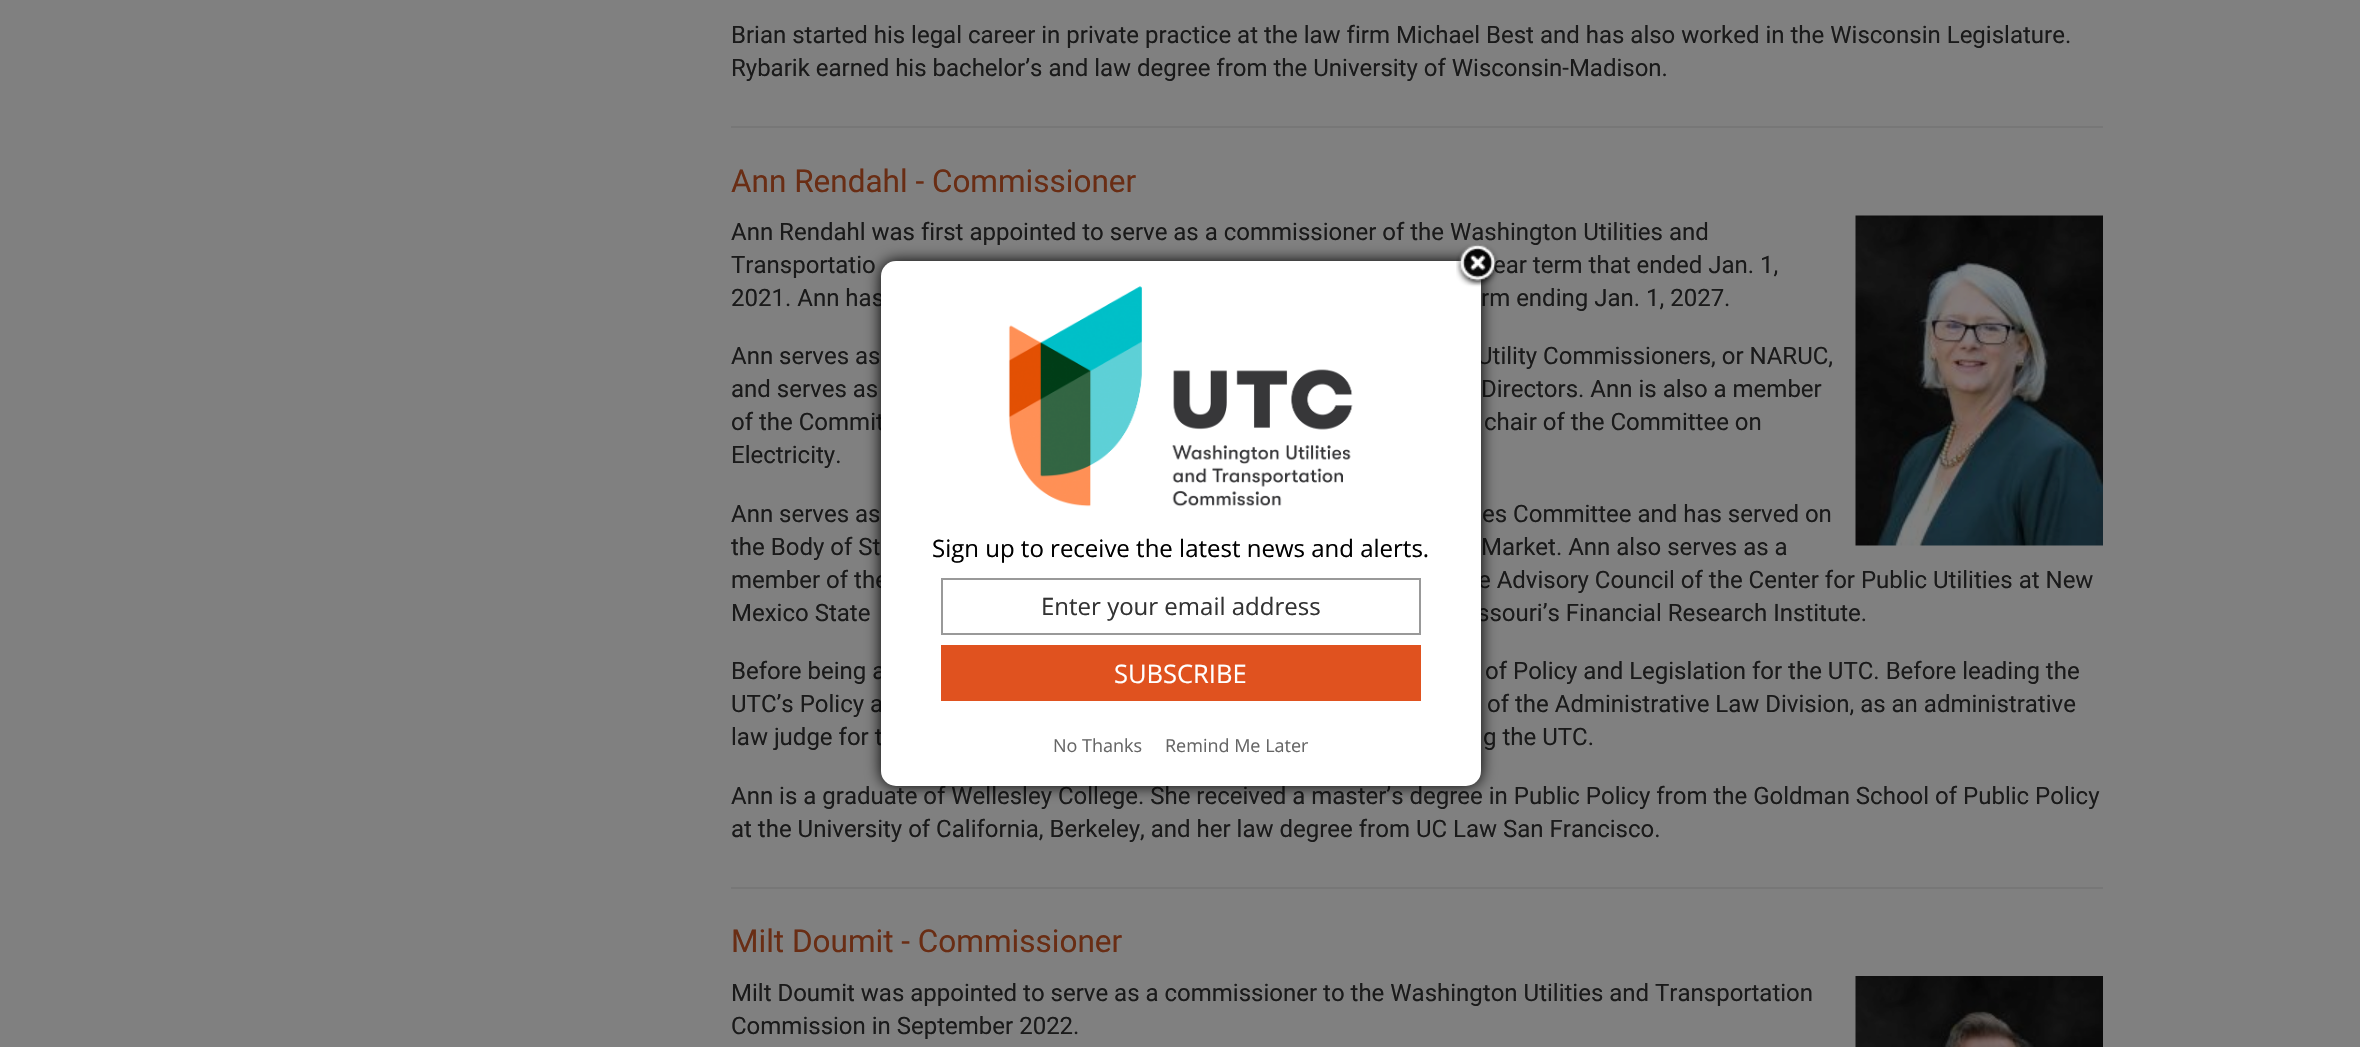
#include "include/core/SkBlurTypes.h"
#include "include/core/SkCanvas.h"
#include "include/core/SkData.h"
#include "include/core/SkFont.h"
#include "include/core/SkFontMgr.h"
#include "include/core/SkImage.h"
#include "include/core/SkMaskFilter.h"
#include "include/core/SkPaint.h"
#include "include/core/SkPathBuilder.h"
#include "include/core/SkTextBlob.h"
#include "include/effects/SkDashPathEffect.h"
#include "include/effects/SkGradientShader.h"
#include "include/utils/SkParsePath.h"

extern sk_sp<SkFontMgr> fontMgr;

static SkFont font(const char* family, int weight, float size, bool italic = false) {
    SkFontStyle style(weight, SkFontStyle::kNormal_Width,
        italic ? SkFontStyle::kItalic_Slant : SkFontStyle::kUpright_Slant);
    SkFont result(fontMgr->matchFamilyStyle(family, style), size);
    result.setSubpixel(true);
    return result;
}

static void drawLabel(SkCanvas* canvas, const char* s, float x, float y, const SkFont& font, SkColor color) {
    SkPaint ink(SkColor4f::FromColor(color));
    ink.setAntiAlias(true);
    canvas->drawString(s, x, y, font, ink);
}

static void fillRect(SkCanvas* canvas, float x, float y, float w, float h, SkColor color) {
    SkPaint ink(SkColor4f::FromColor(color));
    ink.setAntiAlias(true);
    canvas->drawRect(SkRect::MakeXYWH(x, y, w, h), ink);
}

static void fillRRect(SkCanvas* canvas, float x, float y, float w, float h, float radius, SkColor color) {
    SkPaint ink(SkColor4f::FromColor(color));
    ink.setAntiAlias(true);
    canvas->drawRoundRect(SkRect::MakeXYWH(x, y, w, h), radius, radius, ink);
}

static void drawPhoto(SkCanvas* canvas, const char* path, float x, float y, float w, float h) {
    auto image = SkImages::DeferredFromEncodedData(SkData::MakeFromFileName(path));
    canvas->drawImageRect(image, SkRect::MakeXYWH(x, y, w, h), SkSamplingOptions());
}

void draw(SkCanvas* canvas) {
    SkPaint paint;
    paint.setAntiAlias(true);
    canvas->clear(0xFF808080);
    fillRect(canvas, 731, 126, 1372, 2, 0xFF777777);
    SkFont font1 = font("Roboto", 400, 24);
    drawLabel(canvas, "Brian started his legal career in private practice at the law firm Michael Best and has also worked in the Wisconsin Legislature.", 731, 43, font1, 0xFF1A1A1A);
    drawLabel(canvas, "Rybarik earned his bachelor’s and law degree from the University of Wisconsin-Madison.", 731, 76, font1, 0xFF1A1A1A);
    fillRect(canvas, 731, 887, 1372, 2, 0xFF777777);
    SkFont font2 = font("Roboto", 400, 31.5f);
    drawLabel(canvas, "Ann Rendahl - Commissioner", 731, 192, font2, 0xFF692D14);
    drawPhoto(canvas, "assets/img1.png", 1855, 215, 248, 331);
    drawLabel(canvas, "Ann Rendahl was first appointed to serve as a commissioner of the Washington Utilities and", 731, 240, font1, 0xFF1A1A1A);
    drawLabel(canvas, "Transportatio", 731, 273, font1, 0xFF1A1A1A);
    drawLabel(canvas, "ear term that ended Jan. 1,", 1493, 273, font1, 0xFF1A1A1A);
    drawLabel(canvas, "2021. Ann has", 731, 306, font1, 0xFF1A1A1A);
    drawLabel(canvas, "rm ending Jan. 1, 2027.", 1481, 306, font1, 0xFF1A1A1A);
    drawLabel(canvas, "Ann serves as", 731, 364, font1, 0xFF1A1A1A);
    drawLabel(canvas, "Utility Commissioners, or NARUC,", 1477, 364, font1, 0xFF1A1A1A);
    drawLabel(canvas, "and serves as", 731, 397, font1, 0xFF1A1A1A);
    drawLabel(canvas, "Directors. Ann is also a member", 1481, 397, font1, 0xFF1A1A1A);
    drawLabel(canvas, "of the Commit", 731, 430, font1, 0xFF1A1A1A);
    drawLabel(canvas, "chair of the Committee on", 1484, 430, font1, 0xFF1A1A1A);
    drawLabel(canvas, "Electricity.", 731, 463, font1, 0xFF1A1A1A);
    drawLabel(canvas, "Ann serves as", 731, 522, font1, 0xFF1A1A1A);
    drawLabel(canvas, "es Committee and has served on", 1482, 522, font1, 0xFF1A1A1A);
    drawLabel(canvas, "the Body of St", 731, 555, font1, 0xFF1A1A1A);
    drawLabel(canvas, "Market. Ann also serves as a", 1481, 555, font1, 0xFF1A1A1A);
    drawLabel(canvas, "member of the", 731, 588, font1, 0xFF1A1A1A);
    drawLabel(canvas, "e Advisory Council of the Center for Public Utilities at New", 1478, 588, font1, 0xFF1A1A1A);
    drawLabel(canvas, "Mexico State", 731, 621, font1, 0xFF1A1A1A);
    drawLabel(canvas, "ssouri’s Financial Research Institute.", 1477, 621, font1, 0xFF1A1A1A);
    drawLabel(canvas, "Before being a", 731, 679, font1, 0xFF1A1A1A);
    drawLabel(canvas, "of Policy and Legislation for the UTC. Before leading the", 1485, 679, font1, 0xFF1A1A1A);
    drawLabel(canvas, "UTC’s Policy a", 731, 712, font1, 0xFF1A1A1A);
    drawLabel(canvas, "of the Administrative Law Division, as an administrative", 1487, 712, font1, 0xFF1A1A1A);
    drawLabel(canvas, "law judge for t", 731, 745, font1, 0xFF1A1A1A);
    drawLabel(canvas, "g the UTC.", 1483, 745, font1, 0xFF1A1A1A);
    drawLabel(canvas, "Ann is a graduate of Wellesley College. She received a master’s degree in Public Policy from the Goldman School of Public Policy", 731, 804, font1, 0xFF1A1A1A);
    drawLabel(canvas, "at the University of California, Berkeley, and her law degree from UC Law San Francisco.", 731, 837, font1, 0xFF1A1A1A);
    drawLabel(canvas, "Milt Doumit - Commissioner", 731, 952, font2, 0xFF692D14);
    drawLabel(canvas, "Milt Doumit was appointed to serve as a commissioner to the Washington Utilities and Transportation", 731, 1001, font1, 0xFF1A1A1A);
    drawLabel(canvas, "Commission in September 2022.", 731, 1034, font1, 0xFF1A1A1A);
    drawPhoto(canvas, "assets/img2.png", 1855, 976, 248, 71);
    paint.setColor(0xFF000000);
    paint.setMaskFilter(SkMaskFilter::MakeBlur(kNormal_SkBlurStyle, 7.5f));
    canvas->drawRoundRect(SkRect::MakeXYWH(881, 261, 600, 525), 15, 15, paint);
    paint.setMaskFilter(nullptr);
    fillRRect(canvas, 881, 261, 600, 525, 15, 0xFFFFFFFF);
    drawPhoto(canvas, "assets/img3.png", 1456, 244, 44, 43);
    drawPhoto(canvas, "assets/img4.png", 1008, 286, 345, 221);
    SkFont font3 = font("Open Sans", 400, 24);
    drawLabel(canvas, "Sign up to receive the latest news and alerts.", 932, 557, font3, 0xFF000000);
    paint.setStroke(true);
    paint.setStrokeWidth(2);
    paint.setColor(0xFF999999);
    canvas->drawRect(SkRect::MakeXYWH(942, 579, 478, 55), paint);
    drawLabel(canvas, "Enter your email address", 1041, 615, font3, 0xFF333333);
    fillRect(canvas, 941, 645, 480, 56, 0xFFE0521F);
    SkFont font4 = font("Open Sans", 400, 25.5f);
    drawLabel(canvas, "SUBSCRIBE", 1114, 683, font4, 0xFFFFFFFF);
    SkFont font5 = font("Open Sans", 400, 18);
    drawLabel(canvas, "No Thanks", 1053, 752, font5, 0xFF666666);
    drawLabel(canvas, "Remind Me Later", 1165, 752, font5, 0xFF666666);
}
